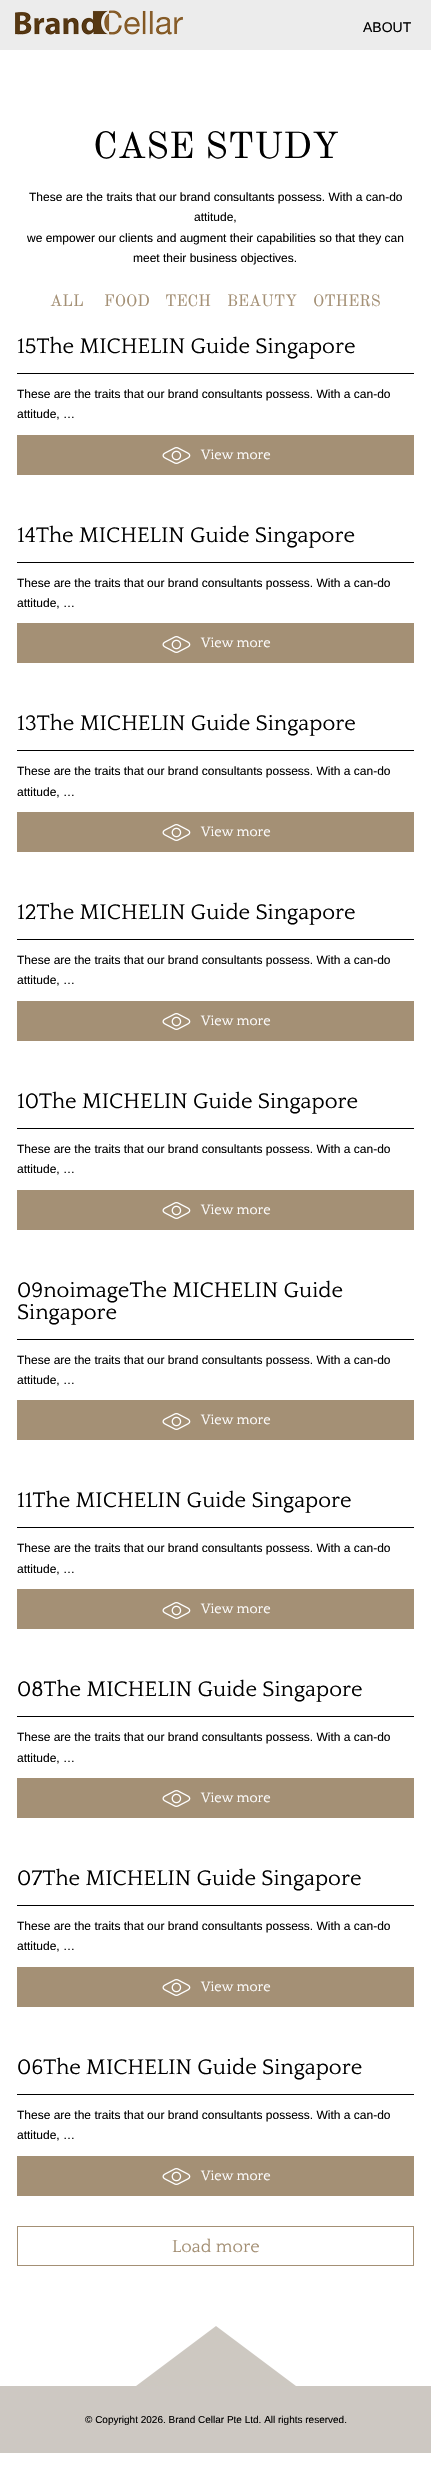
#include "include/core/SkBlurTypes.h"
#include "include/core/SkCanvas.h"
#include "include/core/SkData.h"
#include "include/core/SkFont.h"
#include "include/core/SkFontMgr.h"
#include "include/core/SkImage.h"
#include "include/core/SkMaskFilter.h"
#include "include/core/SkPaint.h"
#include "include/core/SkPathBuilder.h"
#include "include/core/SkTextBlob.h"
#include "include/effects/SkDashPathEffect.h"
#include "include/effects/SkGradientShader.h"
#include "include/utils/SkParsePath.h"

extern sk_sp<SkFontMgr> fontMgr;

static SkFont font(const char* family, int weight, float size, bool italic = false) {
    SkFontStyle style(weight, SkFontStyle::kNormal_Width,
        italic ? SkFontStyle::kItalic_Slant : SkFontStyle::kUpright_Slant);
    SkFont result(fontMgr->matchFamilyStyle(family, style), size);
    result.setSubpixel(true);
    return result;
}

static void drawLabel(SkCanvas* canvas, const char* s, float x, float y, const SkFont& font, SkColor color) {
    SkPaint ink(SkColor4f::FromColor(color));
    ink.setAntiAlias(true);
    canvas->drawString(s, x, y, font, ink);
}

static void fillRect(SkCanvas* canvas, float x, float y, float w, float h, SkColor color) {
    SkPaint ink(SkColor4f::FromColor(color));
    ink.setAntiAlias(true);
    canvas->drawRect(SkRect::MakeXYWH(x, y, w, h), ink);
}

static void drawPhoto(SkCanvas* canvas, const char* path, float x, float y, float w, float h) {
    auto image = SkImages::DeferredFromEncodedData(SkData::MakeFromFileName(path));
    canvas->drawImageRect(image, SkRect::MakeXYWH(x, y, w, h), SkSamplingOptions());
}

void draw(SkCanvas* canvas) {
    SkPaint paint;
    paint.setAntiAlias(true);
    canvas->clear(0xFFFFFFFF);
    fillRect(canvas, 0, 0, 431, 50, 0xFFECECEC);
    drawPhoto(canvas, "assets/img1.png", 15, 10, 168, 25);
    SkFont font1 = font("Liberation Sans", 400, 14);
    drawLabel(canvas, "ABOUT", 363, 32, font1, 0xFF000000);
    SkFont font2 = font("Old Standard TT", 400, 37);
    drawLabel(canvas, "CASE STUDY", 93, 158, font2, 0xFF000000);
    SkFont font3 = font("Liberation Sans", 400, 12);
    drawLabel(canvas, "These are the traits that our brand consultants possess. With a can-do", 29, 201, font3, 0xFF000000);
    drawLabel(canvas, "attitude,", 194, 221, font3, 0xFF000000);
    drawLabel(canvas, "we empower our clients and augment their capabilities so that they can", 27, 242, font3, 0xFF000000);
    drawLabel(canvas, "meet their business objectives.", 133, 262, font3, 0xFF000000);
    SkFont font4 = font("Old Standard TT", 400, 16);
    drawLabel(canvas, "ALL", 50, 306, font4, 0xFFA49075);
    drawLabel(canvas, "FOOD", 104, 306, font4, 0xFFA49075);
    drawLabel(canvas, "TECH", 165, 306, font4, 0xFFA49075);
    drawLabel(canvas, "BEAUTY", 227, 306, font4, 0xFFA49075);
    drawLabel(canvas, "OTHERS", 313, 306, font4, 0xFFA49075);
    fillRect(canvas, 17, 373, 397, 1, 0xFF000000);
    SkFont font5 = font("Quattrocento", 400, 22);
    drawLabel(canvas, "15The MICHELIN Guide Singapore", 17, 353, font5, 0xFF000000);
    drawLabel(canvas, "These are the traits that our brand consultants possess. With a can-do", 17, 398, font3, 0xFF000000);
    drawLabel(canvas, "attitude, …", 17, 418, font3, 0xFF000000);
    fillRect(canvas, 17, 435, 397, 40, 0xFFA49075);
    drawPhoto(canvas, "assets/img2.png", 162, 447, 29, 17);
    SkFont font6 = font("Quattrocento", 400, 14);
    drawLabel(canvas, "View more", 201, 459, font6, 0xFFFFFFFF);
    fillRect(canvas, 17, 562, 397, 1, 0xFF000000);
    drawLabel(canvas, "14The MICHELIN Guide Singapore", 17, 542, font5, 0xFF000000);
    drawLabel(canvas, "These are the traits that our brand consultants possess. With a can-do", 17, 587, font3, 0xFF000000);
    drawLabel(canvas, "attitude, …", 17, 607, font3, 0xFF000000);
    fillRect(canvas, 17, 623, 397, 40, 0xFFA49075);
    drawPhoto(canvas, "assets/img2.png", 162, 636, 29, 17);
    drawLabel(canvas, "View more", 201, 647, font6, 0xFFFFFFFF);
    fillRect(canvas, 17, 750, 397, 1, 0xFF000000);
    drawLabel(canvas, "13The MICHELIN Guide Singapore", 17, 730, font5, 0xFF000000);
    drawLabel(canvas, "These are the traits that our brand consultants possess. With a can-do", 17, 775, font3, 0xFF000000);
    drawLabel(canvas, "attitude, …", 17, 796, font3, 0xFF000000);
    fillRect(canvas, 17, 812, 397, 40, 0xFFA49075);
    drawPhoto(canvas, "assets/img2.png", 162, 824, 29, 17);
    drawLabel(canvas, "View more", 201, 836, font6, 0xFFFFFFFF);
    fillRect(canvas, 17, 939, 397, 1, 0xFF000000);
    drawLabel(canvas, "12The MICHELIN Guide Singapore", 17, 919, font5, 0xFF000000);
    drawLabel(canvas, "These are the traits that our brand consultants possess. With a can-do", 17, 964, font3, 0xFF000000);
    drawLabel(canvas, "attitude, …", 17, 984, font3, 0xFF000000);
    fillRect(canvas, 17, 1001, 397, 40, 0xFFA49075);
    drawPhoto(canvas, "assets/img2.png", 162, 1013, 29, 17);
    drawLabel(canvas, "View more", 201, 1025, font6, 0xFFFFFFFF);
    fillRect(canvas, 17, 1128, 397, 1, 0xFF000000);
    drawLabel(canvas, "10The MICHELIN Guide Singapore", 17, 1108, font5, 0xFF000000);
    drawLabel(canvas, "These are the traits that our brand consultants possess. With a can-do", 17, 1153, font3, 0xFF000000);
    drawLabel(canvas, "attitude, …", 17, 1173, font3, 0xFF000000);
    fillRect(canvas, 17, 1190, 397, 40, 0xFFA49075);
    drawPhoto(canvas, "assets/img2.png", 162, 1202, 29, 17);
    drawLabel(canvas, "View more", 201, 1214, font6, 0xFFFFFFFF);
    fillRect(canvas, 17, 1339, 397, 1, 0xFF000000);
    drawLabel(canvas, "09noimageThe MICHELIN Guide", 17, 1297, font5, 0xFF000000);
    drawLabel(canvas, "Singapore", 17, 1319, font5, 0xFF000000);
    drawLabel(canvas, "These are the traits that our brand consultants possess. With a can-do", 17, 1364, font3, 0xFF000000);
    drawLabel(canvas, "attitude, …", 17, 1384, font3, 0xFF000000);
    fillRect(canvas, 17, 1400, 397, 40, 0xFFA49075);
    drawPhoto(canvas, "assets/img2.png", 162, 1413, 29, 17);
    drawLabel(canvas, "View more", 201, 1424, font6, 0xFFFFFFFF);
    fillRect(canvas, 17, 1527, 397, 1, 0xFF000000);
    drawLabel(canvas, "11The MICHELIN Guide Singapore", 17, 1507, font5, 0xFF000000);
    drawLabel(canvas, "These are the traits that our brand consultants possess. With a can-do", 17, 1552, font3, 0xFF000000);
    drawLabel(canvas, "attitude, …", 17, 1573, font3, 0xFF000000);
    fillRect(canvas, 17, 1589, 397, 40, 0xFFA49075);
    drawPhoto(canvas, "assets/img2.png", 162, 1602, 29, 17);
    drawLabel(canvas, "View more", 201, 1613, font6, 0xFFFFFFFF);
    fillRect(canvas, 17, 1716, 397, 1, 0xFF000000);
    drawLabel(canvas, "08The MICHELIN Guide Singapore", 17, 1696, font5, 0xFF000000);
    drawLabel(canvas, "These are the traits that our brand consultants possess. With a can-do", 17, 1741, font3, 0xFF000000);
    drawLabel(canvas, "attitude, …", 17, 1762, font3, 0xFF000000);
    fillRect(canvas, 17, 1778, 397, 40, 0xFFA49075);
    drawPhoto(canvas, "assets/img2.png", 162, 1790, 29, 17);
    drawLabel(canvas, "View more", 201, 1802, font6, 0xFFFFFFFF);
    fillRect(canvas, 17, 1905, 397, 1, 0xFF000000);
    drawLabel(canvas, "07The MICHELIN Guide Singapore", 17, 1885, font5, 0xFF000000);
    drawLabel(canvas, "These are the traits that our brand consultants possess. With a can-do", 17, 1930, font3, 0xFF000000);
    drawLabel(canvas, "attitude, …", 17, 1950, font3, 0xFF000000);
    fillRect(canvas, 17, 1967, 397, 40, 0xFFA49075);
    drawPhoto(canvas, "assets/img2.png", 162, 1979, 29, 17);
    drawLabel(canvas, "View more", 201, 1991, font6, 0xFFFFFFFF);
    fillRect(canvas, 17, 2094, 397, 1, 0xFF000000);
    drawLabel(canvas, "06The MICHELIN Guide Singapore", 17, 2074, font5, 0xFF000000);
    drawLabel(canvas, "These are the traits that our brand consultants possess. With a can-do", 17, 2119, font3, 0xFF000000);
    drawLabel(canvas, "attitude, …", 17, 2139, font3, 0xFF000000);
    fillRect(canvas, 17, 2156, 397, 40, 0xFFA49075);
    drawPhoto(canvas, "assets/img2.png", 162, 2168, 29, 17);
    drawLabel(canvas, "View more", 201, 2180, font6, 0xFFFFFFFF);
    paint.setStroke(true);
    paint.setStrokeWidth(1);
    paint.setColor(0xFFA49075);
    canvas->drawRect(SkRect::MakeXYWH(17.5f, 2226.5f, 396, 39), paint);
    SkFont font7 = font("Quattrocento", 400, 18);
    drawLabel(canvas, "Load more", 172, 2252, font7, 0xFFA49075);
    drawPhoto(canvas, "assets/img3.png", 136, 2326, 160, 60);
    fillRect(canvas, 0, 2386, 431, 67, 0xFFCDC8C2);
    SkFont font8 = font("Liberation Sans", 400, 10);
    drawLabel(canvas, "© Copyright 2026. Brand Cellar Pte Ltd. All rights reserved.", 85, 2423, font8, 0xFF000000);
}
